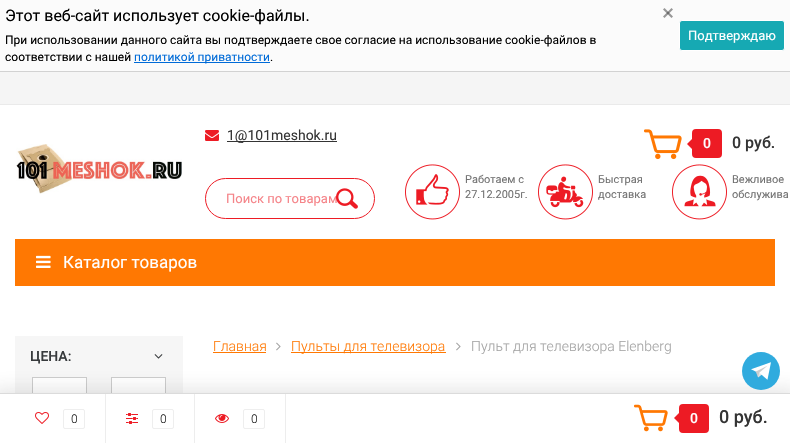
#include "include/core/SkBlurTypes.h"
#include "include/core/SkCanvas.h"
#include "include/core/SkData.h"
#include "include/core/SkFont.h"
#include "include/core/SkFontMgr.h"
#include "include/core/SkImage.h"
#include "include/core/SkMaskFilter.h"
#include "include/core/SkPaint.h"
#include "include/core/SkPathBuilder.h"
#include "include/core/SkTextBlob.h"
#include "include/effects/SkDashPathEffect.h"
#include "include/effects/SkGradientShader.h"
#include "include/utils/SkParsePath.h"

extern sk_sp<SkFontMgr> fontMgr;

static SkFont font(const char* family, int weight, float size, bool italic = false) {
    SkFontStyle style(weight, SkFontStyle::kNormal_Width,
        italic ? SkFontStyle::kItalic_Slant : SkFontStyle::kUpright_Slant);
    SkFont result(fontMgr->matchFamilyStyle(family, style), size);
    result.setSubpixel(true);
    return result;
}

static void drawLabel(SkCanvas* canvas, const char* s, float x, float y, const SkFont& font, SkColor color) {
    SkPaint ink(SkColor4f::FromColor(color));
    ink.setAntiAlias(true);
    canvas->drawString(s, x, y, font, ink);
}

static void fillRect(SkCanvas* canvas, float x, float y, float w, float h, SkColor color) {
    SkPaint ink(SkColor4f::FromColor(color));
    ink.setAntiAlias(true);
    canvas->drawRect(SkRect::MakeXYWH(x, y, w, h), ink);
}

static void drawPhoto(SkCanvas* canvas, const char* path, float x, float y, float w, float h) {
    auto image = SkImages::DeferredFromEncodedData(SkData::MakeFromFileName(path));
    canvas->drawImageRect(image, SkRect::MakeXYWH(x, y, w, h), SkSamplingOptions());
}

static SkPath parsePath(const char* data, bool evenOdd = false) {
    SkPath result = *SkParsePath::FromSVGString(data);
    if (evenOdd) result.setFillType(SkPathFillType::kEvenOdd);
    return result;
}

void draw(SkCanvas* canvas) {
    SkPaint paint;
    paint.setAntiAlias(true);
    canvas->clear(0xFFFFFFFF);
    fillRect(canvas, 0, 0, 790, 71, 0xFFFBFBFB);
    fillRect(canvas, 0, 71, 790, 1, 0xFFD2D2D2);
    SkFont font1 = font("Roboto", 400, 16);
    drawLabel(canvas, "Этот веб-сайт использует cookie-файлы.", 5, 21, font1, 0xFF000000);
    paint.setColor(0xFF979797);
    canvas->drawPath(parsePath("M664.5 8L673 16.5L671.5 18L663 9.5Z"), paint);
    paint.setColor(0x80333333);
    canvas->drawPath(parsePath("M663 16.5L671.5 8L673 9.5L664.5 18Z"), paint);
    SkFont font2 = font("Roboto", 400, 12);
    drawLabel(canvas, "При использовании данного сайта вы подтверждаете свое согласие на использование cookie-файлов в", 5, 44, font2, 0xFF000000);
    drawLabel(canvas, "соответствии с нашей", 5, 61, font2, 0xFF000000);
    fillRect(canvas, 134, 62, 136, 1, 0xFF006BD8);
    drawLabel(canvas, "политикой приватности", 134, 61, font2, 0xFF006BD8);
    drawLabel(canvas, ".", 270, 61, font2, 0xFF000000);
    paint.setColor(0xFF16A9B3);
    canvas->drawRoundRect(SkRect::MakeXYWH(679.5f, 20.5f, 105, 30), 2.5f, 2.5f, paint);
    paint.setStroke(true);
    paint.setStrokeWidth(1);
    paint.setColor(0xFFFFFFFF);
    canvas->drawRoundRect(SkRect::MakeXYWH(679.5f, 20.5f, 105, 30), 2.5f, 2.5f, paint);
    SkFont font3 = font("Roboto", 400, 13);
    drawLabel(canvas, "Подтверждаю", 688, 40, font3, 0xFFFFFFFF);
    fillRect(canvas, 0, 72, 790, 32, 0xFFF5F5F5);
    fillRect(canvas, 0, 104, 790, 1, 0xFFEAEAEA);
    drawPhoto(canvas, "assets/img1.png", 16, 144, 166, 50);
    drawPhoto(canvas, "assets/img2.png", 205, 130, 14, 11);
    fillRect(canvas, 227, 141, 110, 1, 0xFF343434);
    SkFont font4 = font("Roboto", 400, 14);
    drawLabel(canvas, "1@101meshok.ru", 227, 140, font4, 0xFF343434);
    drawPhoto(canvas, "assets/img3.png", 644, 129, 38, 31);
    paint.setStroke(false);
    paint.setColor(0xFFED1B24);
    canvas->drawRoundRect(SkRect::MakeXYWH(694, 131, 26, 25), 2, 2, paint);
    paint.setStroke(true);
    paint.setStrokeWidth(4);
    canvas->drawRoundRect(SkRect::MakeXYWH(694, 131, 26, 25), 2, 2, paint);
    paint.setStroke(false);
    canvas->drawPath(parsePath("M696 135V153L687 144Z"), paint);
    SkFont font5 = font("Roboto", 500, 14);
    drawLabel(canvas, "0", 703, 148, font5, 0xFFFFFFFF);
    SkFont font6 = font("Roboto", 500, 16);
    drawLabel(canvas, "0 руб.", 732, 148, font6, 0xFF343434);
    paint.setStroke(true);
    paint.setStrokeWidth(1);
    canvas->drawRoundRect(SkRect::MakeXYWH(205.5f, 178.5f, 169, 40), 20, 20, paint);
    drawLabel(canvas, "Поиск по товарам", 226, 203, font3, 0xFFF58489);
    drawPhoto(canvas, "assets/img4.png", 336, 188, 22, 21);
    drawPhoto(canvas, "assets/img5.png", 405, 164, 55, 56);
    SkFont font7 = font("Roboto", 400, 11);
    drawLabel(canvas, "Работаем с", 465, 183, font7, 0xFF717171);
    drawLabel(canvas, "27.12.2005г.", 465, 198, font7, 0xFF717171);
    drawPhoto(canvas, "assets/img6.png", 538, 164, 55, 56);
    drawLabel(canvas, "Быстрая", 598, 183, font7, 0xFF717171);
    drawLabel(canvas, "доставка", 598, 198, font7, 0xFF717171);
    drawPhoto(canvas, "assets/img7.png", 672, 164, 55, 56);
    drawLabel(canvas, "Вежливое", 732, 183, font7, 0xFF717171);
    drawLabel(canvas, "обслужива", 732, 198, font7, 0xFF717171);
    fillRect(canvas, 15, 239, 760, 47, 0xFFFF7802);
    drawPhoto(canvas, "assets/img8.png", 36, 255, 15, 13);
    SkFont font8 = font("Roboto", 400, 17);
    drawLabel(canvas, "Каталог товаров", 63, 268, font8, 0xFFFFFFFF);
    SkFont font9 = font("Roboto", 300, 14);
    drawLabel(canvas, "Главная", 213, 351, font9, 0xFFFF7802);
    fillRect(canvas, 213, 352, 53, 1, 0xFFFF7802);
    drawPhoto(canvas, "assets/img9.png", 276, 342, 5, 9);
    fillRect(canvas, 291, 352, 155, 1, 0xFFFF7802);
    drawLabel(canvas, "Пульты для телевизора", 291, 351, font9, 0xFFFF7802);
    drawPhoto(canvas, "assets/img9.png", 456, 342, 5, 9);
    drawLabel(canvas, "Пульт для телевизора Elenberg", 471, 351, font9, 0xFFA3A3A3);
    fillRect(canvas, 15, 336, 168, 57, 0xFFF6F6F6);
    drawLabel(canvas, "ЦЕНА:", 30, 361, font5, 0xFF373A3C);
    drawPhoto(canvas, "assets/img10.png", 154, 354, 9, 5);
    fillRect(canvas, 33, 378, 53, 15, 0xFFFFFFFF);
    paint.setColor(0xFFCCCCCC);
    canvas->drawRect(SkRect::MakeXYWH(32.5f, 377.5f, 54, 32), paint);
    fillRect(canvas, 112, 378, 53, 15, 0xFFFFFFFF);
    canvas->drawRect(SkRect::MakeXYWH(111.5f, 377.5f, 54, 32), paint);
    paint.setStroke(false);
    paint.setColor(0x26323232);
    paint.setMaskFilter(SkMaskFilter::MakeBlur(kNormal_SkBlurStyle, 10));
    canvas->drawRect(SkRect::MakeXYWH(-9, 391, 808, 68), paint);
    paint.setMaskFilter(nullptr);
    paint.setColor(0xFF30ABDE);
    canvas->drawCircle(761, 371, 19, paint);
    drawPhoto(canvas, "assets/img11.png", 751, 362, 20, 18);
    fillRect(canvas, 0, 394, 790, 49, 0xFFFFFFFF);
    fillRect(canvas, 0, 393, 790, 1, 0xFFDBDBDB);
    fillRect(canvas, 105, 394, 1, 49, 0xFFEDEDED);
    drawPhoto(canvas, "assets/img12.png", 35, 412, 14, 12);
    paint.setStroke(true);
    paint.setColor(0xFFEEEEEE);
    canvas->drawRoundRect(SkRect::MakeXYWH(63.5f, 409.5f, 21, 19), 1.5f, 1.5f, paint);
    SkFont font10 = font("Roboto", 300, 12);
    drawLabel(canvas, "0", 71, 423, font10, 0xFF222222);
    fillRect(canvas, 194, 394, 1, 49, 0xFFEDEDED);
    drawPhoto(canvas, "assets/img13.png", 126, 413, 12, 11);
    canvas->drawRoundRect(SkRect::MakeXYWH(152.5f, 409.5f, 21, 19), 1.5f, 1.5f, paint);
    drawLabel(canvas, "0", 160, 423, font10, 0xFF222222);
    fillRect(canvas, 285, 394, 1, 49, 0xFFEDEDED);
    drawPhoto(canvas, "assets/img14.png", 215, 414, 14, 9);
    canvas->drawRoundRect(SkRect::MakeXYWH(243.5f, 409.5f, 21, 19), 1.5f, 1.5f, paint);
    drawLabel(canvas, "0", 251, 423, font10, 0xFF222222);
    drawPhoto(canvas, "assets/img15.png", 634, 404, 34, 28);
    paint.setStroke(false);
    paint.setColor(0xFFED1B24);
    canvas->drawRoundRect(SkRect::MakeXYWH(681, 406, 26, 25), 2, 2, paint);
    paint.setStroke(true);
    paint.setStrokeWidth(4);
    canvas->drawRoundRect(SkRect::MakeXYWH(681, 406, 26, 25), 2, 2, paint);
    paint.setStroke(false);
    canvas->drawPath(parsePath("M683 409V427L674 418Z"), paint);
    drawLabel(canvas, "0", 690, 423, font5, 0xFFFFFFFF);
    SkFont font11 = font("Roboto", 500, 18);
    drawLabel(canvas, "0 руб.", 719, 423, font11, 0xFF343434);
}
